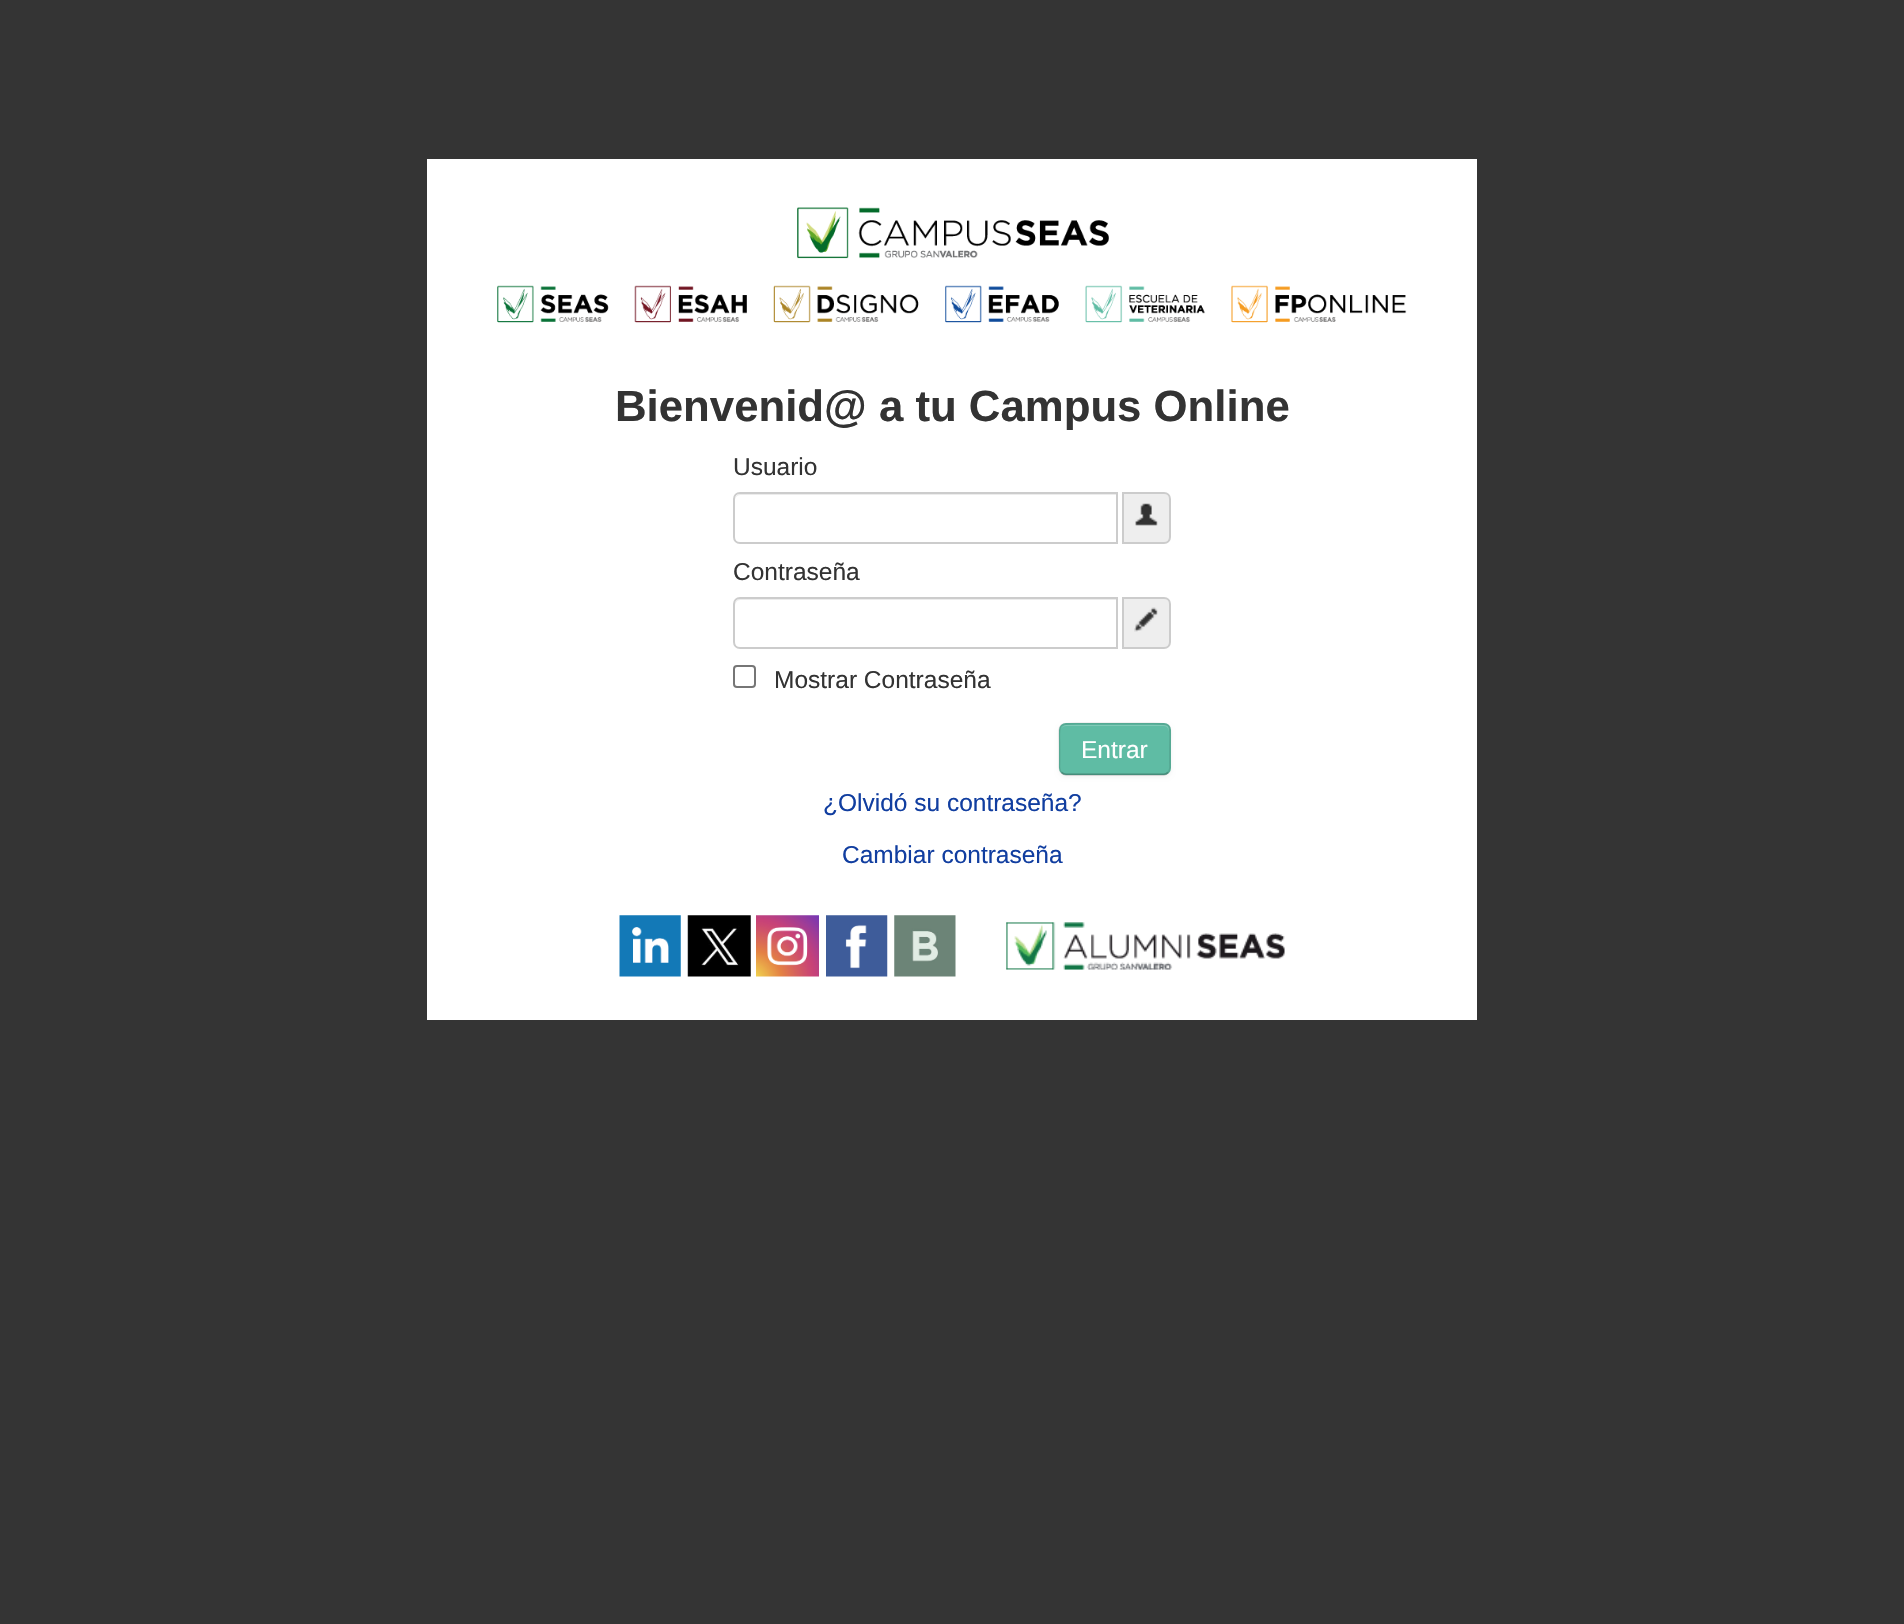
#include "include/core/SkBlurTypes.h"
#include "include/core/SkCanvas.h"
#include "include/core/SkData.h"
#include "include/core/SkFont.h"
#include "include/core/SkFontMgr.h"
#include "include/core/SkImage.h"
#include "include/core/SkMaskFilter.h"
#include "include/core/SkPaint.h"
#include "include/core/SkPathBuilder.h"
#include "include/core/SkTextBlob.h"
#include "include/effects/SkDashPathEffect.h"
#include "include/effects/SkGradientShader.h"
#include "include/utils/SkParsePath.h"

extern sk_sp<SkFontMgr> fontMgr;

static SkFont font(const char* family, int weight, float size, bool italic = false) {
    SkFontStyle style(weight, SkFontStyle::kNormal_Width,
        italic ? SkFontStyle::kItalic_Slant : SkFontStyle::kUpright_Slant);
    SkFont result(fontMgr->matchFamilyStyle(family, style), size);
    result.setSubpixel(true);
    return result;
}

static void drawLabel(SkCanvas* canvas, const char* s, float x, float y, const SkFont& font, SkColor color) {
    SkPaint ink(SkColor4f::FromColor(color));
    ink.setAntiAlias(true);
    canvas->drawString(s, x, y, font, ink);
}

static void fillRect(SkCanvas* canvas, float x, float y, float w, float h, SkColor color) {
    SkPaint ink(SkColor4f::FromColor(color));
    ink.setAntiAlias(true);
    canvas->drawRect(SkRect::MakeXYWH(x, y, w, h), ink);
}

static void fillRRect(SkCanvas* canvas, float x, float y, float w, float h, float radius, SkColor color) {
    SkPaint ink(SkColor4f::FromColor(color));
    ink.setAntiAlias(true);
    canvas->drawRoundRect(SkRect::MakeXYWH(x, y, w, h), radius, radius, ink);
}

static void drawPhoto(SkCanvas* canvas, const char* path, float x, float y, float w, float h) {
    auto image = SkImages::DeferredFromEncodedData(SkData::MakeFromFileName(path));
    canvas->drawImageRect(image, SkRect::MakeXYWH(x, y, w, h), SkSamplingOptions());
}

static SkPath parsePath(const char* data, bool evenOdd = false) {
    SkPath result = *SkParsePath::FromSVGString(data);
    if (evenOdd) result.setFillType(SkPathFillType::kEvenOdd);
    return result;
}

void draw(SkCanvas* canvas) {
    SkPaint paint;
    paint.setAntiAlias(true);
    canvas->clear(0xFF343434);
    fillRect(canvas, 427, 159, 1050, 861, 0xFFFFFFFF);
    drawPhoto(canvas, "assets/img1.png", 497, 207, 910, 116);
    SkFont font1 = font("Liberation Sans", 700, 43.75f);
    drawLabel(canvas, "Bienvenid@ a tu Campus Online", 615, 421, font1, 0xFF333333);
    SkFont font2 = font("Liberation Sans", 400, 24.5f);
    drawLabel(canvas, "Usuario", 733, 475, font2, 0xFF333333);
    paint.setColor(0xFFECECEC);
    canvas->drawPath(parsePath("M740 495H1116V543H1117V494H740C737 494 735 497 735 500C735 498 737 495 740 495Z"), paint);
    paint.setStroke(true);
    paint.setStrokeWidth(2);
    paint.setColor(0xFFCCCCCC);
    canvas->drawPath(parsePath("M740 493H1117V543H740C736.5 543 734 540.5 734 537V499C734 495.5 736.5 493 740 493Z"), paint);
    paint.setStroke(false);
    paint.setColor(0xFFEEEEEE);
    canvas->drawPath(parsePath("M1123 493H1164C1167.5 493 1170 495.5 1170 499V537C1170 540.5 1167.5 543 1164 543H1123Z"), paint);
    paint.setStroke(true);
    paint.setColor(0xFFCCCCCC);
    canvas->drawPath(parsePath("M1123 493H1164C1167.5 493 1170 495.5 1170 499V537C1170 540.5 1167.5 543 1164 543H1123Z"), paint);
    drawPhoto(canvas, "assets/img2.png", 1135, 503, 23, 23);
    drawLabel(canvas, "Contraseña", 733, 580, font2, 0xFF333333);
    paint.setStroke(false);
    paint.setColor(0xFFECECEC);
    canvas->drawPath(parsePath("M740 600H1116V648H1117V599H740C737 599 735 601 735 604V606C735 603 737 600 740 600Z"), paint);
    paint.setStroke(true);
    paint.setColor(0xFFCCCCCC);
    canvas->drawPath(parsePath("M740 598H1117V648H740C736.5 648 734 645.5 734 642V604C734 600.5 736.5 598 740 598Z"), paint);
    paint.setStroke(false);
    paint.setColor(0xFFEEEEEE);
    canvas->drawPath(parsePath("M1123 598H1164C1167.5 598 1170 600.5 1170 604V642C1170 645.5 1167.5 648 1164 648H1123Z"), paint);
    paint.setStroke(true);
    paint.setColor(0xFFCCCCCC);
    canvas->drawPath(parsePath("M1123 598H1164C1167.5 598 1170 600.5 1170 604V642C1170 645.5 1167.5 648 1164 648H1123Z"), paint);
    drawPhoto(canvas, "assets/img3.png", 1134, 607, 24, 25);
    paint.setColor(0xFF767676);
    canvas->drawRoundRect(SkRect::MakeXYWH(734, 666, 21, 21), 3, 3, paint);
    drawLabel(canvas, "Mostrar Contraseña", 774, 688, font2, 0xFF333333);
    paint.setStroke(false);
    paint.setColor(0x0D000000);
    paint.setMaskFilter(SkMaskFilter::MakeBlur(kNormal_SkBlurStyle, 2));
    canvas->drawRoundRect(SkRect::MakeXYWH(1059, 725, 112, 52), 7, 7, paint);
    paint.setMaskFilter(nullptr);
    fillRRect(canvas, 1059, 723, 112, 52, 7, 0xFF5FBCA4);
    paint.setColor(0xFF7FC9B6);
    canvas->drawPath(parsePath("M1066 726H1164C1167 726 1169 729 1169 732V730C1169 727 1167 725 1164 725H1066C1064 725 1062 727 1061 729C1062 727 1064 726 1066 726Z"), paint);
    paint.setStroke(true);
    paint.setStrokeWidth(1.8f);
    paint.setColor(0x40000000);
    canvas->drawPath(parsePath("M1168 772.5C1167 773.5 1165.5 774.5 1164 774.5H1066C1064 774.5 1062.5 773.5 1061.5 772.5"), paint);
    paint.setColor(0x1A000000);
    canvas->drawPath(parsePath("M1061.5 772.5C1058.5 770 1059.5 765 1059.5 762V749C1059.5 721.5 1055 723.5 1082 723.5H1147.5C1174.5 723.5 1170 721.5 1170 749V762C1170 765 1171 770 1168 772.5"), paint);
    drawLabel(canvas, "Entrar", 1081, 758, font2, 0xFFFFFFFF);
    drawLabel(canvas, "¿Olvidó su contraseña?", 823, 811, font2, 0xFF113EA0);
    drawLabel(canvas, "Cambiar contraseña", 842, 863, font2, 0xFF113EA0);
    drawPhoto(canvas, "assets/img4.png", 619, 915, 62, 62);
    drawPhoto(canvas, "assets/img5.png", 687, 915, 64, 62);
    drawPhoto(canvas, "assets/img6.png", 756, 915, 63, 62);
    drawPhoto(canvas, "assets/img7.png", 826, 915, 62, 62);
    drawPhoto(canvas, "assets/img8.png", 894, 915, 62, 62);
    drawPhoto(canvas, "assets/img9.png", 1006, 922, 279, 48);
}
